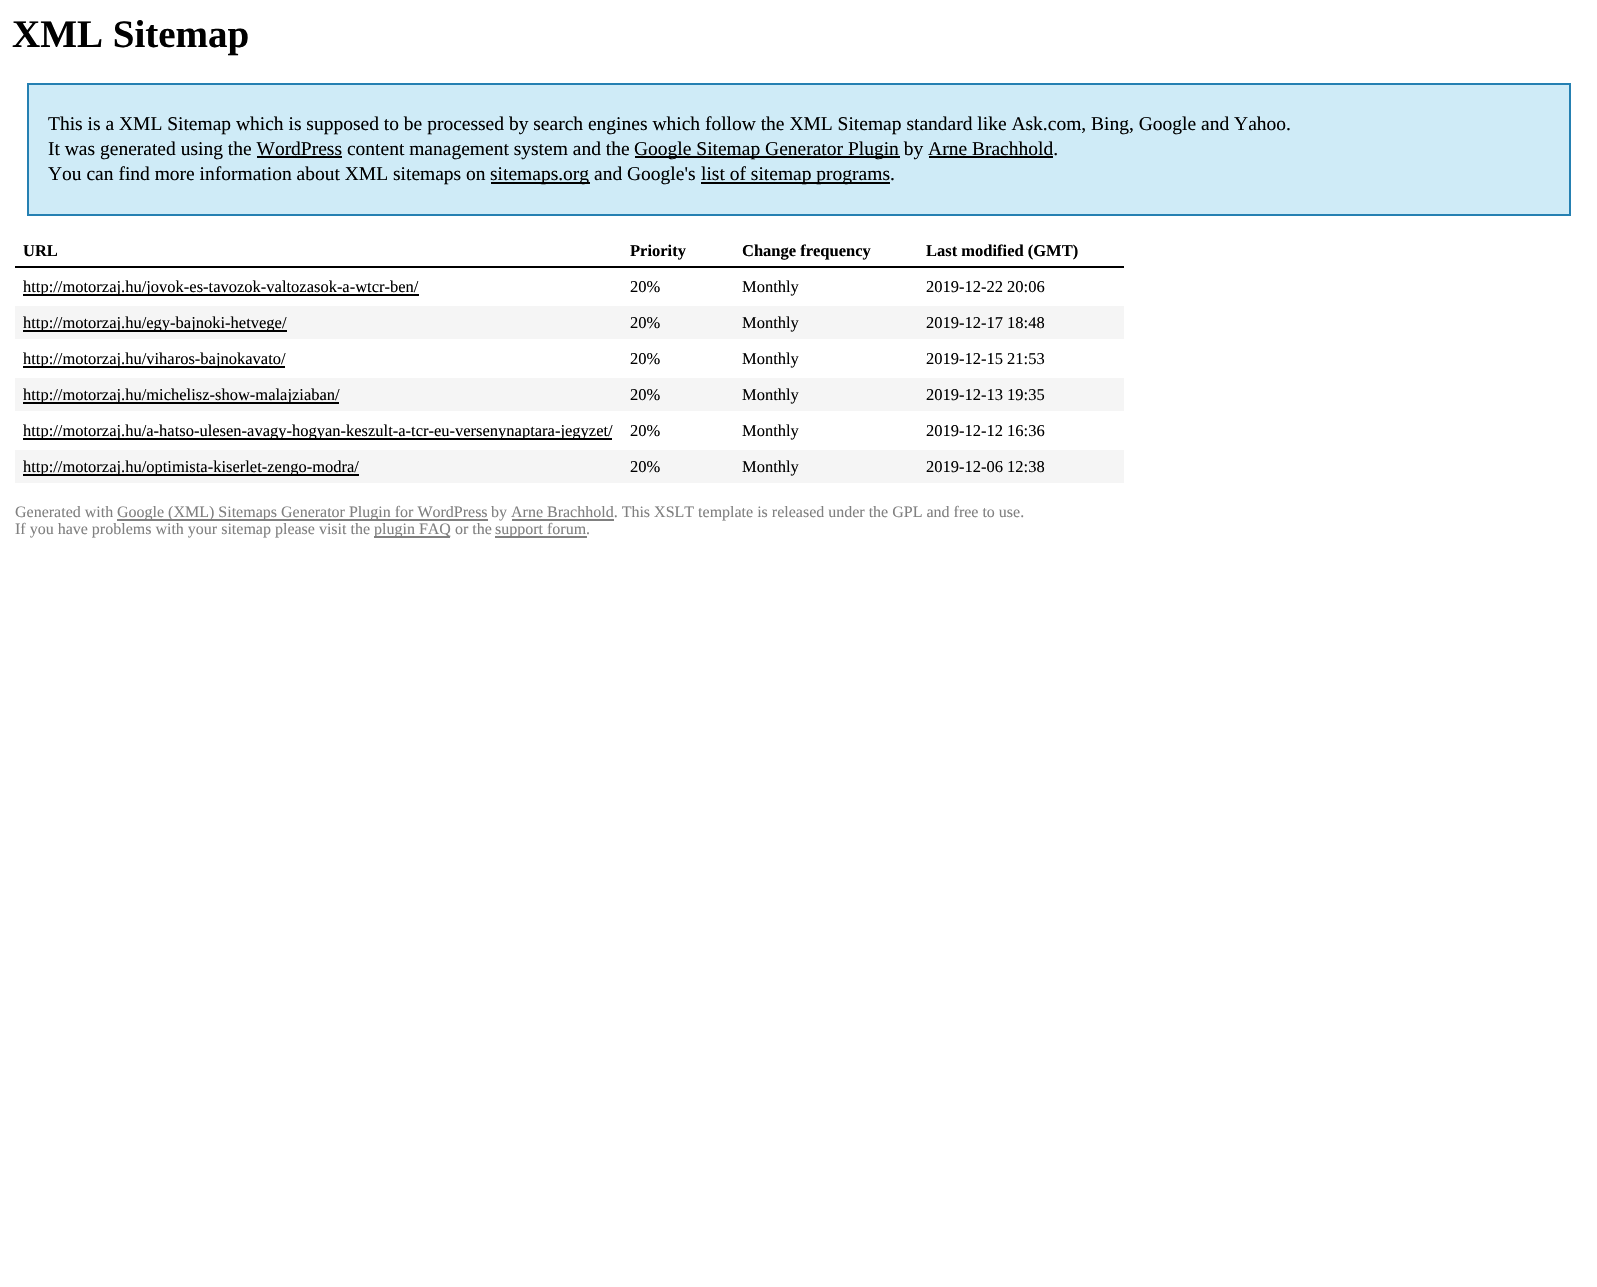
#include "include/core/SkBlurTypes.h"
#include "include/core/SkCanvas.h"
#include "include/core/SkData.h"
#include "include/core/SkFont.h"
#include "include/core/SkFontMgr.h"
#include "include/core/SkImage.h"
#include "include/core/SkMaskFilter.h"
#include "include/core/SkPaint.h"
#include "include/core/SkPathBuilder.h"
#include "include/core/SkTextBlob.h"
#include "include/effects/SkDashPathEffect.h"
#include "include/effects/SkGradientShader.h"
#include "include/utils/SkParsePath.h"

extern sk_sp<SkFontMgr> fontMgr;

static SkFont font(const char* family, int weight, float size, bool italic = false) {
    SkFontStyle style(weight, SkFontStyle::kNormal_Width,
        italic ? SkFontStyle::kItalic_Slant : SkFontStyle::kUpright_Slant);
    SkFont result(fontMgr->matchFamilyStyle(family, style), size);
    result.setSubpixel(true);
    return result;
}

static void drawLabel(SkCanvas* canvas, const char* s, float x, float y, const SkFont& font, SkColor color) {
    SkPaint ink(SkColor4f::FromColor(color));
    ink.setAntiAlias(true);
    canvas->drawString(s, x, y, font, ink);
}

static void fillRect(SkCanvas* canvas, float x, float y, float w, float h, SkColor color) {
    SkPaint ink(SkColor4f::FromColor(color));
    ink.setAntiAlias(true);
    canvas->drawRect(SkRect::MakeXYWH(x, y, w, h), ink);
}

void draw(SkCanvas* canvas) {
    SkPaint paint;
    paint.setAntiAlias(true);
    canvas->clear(0xFFFFFFFF);
    SkFont font1 = font("Liberation Serif", 700, 39);
    drawLabel(canvas, "XML Sitemap", 12, 47, font1, 0xFF000000);
    paint.setColor(0xFFCFEBF7);
    canvas->drawRect(SkRect::MakeXYWH(28, 84, 1542, 131), paint);
    paint.setStroke(true);
    paint.setStrokeWidth(2);
    paint.setColor(0xFF2580B2);
    canvas->drawRect(SkRect::MakeXYWH(28, 84, 1542, 131), paint);
    SkFont font2 = font("Liberation Serif", 400, 19.5f);
    drawLabel(canvas, "This is a XML Sitemap which is supposed to be processed by search engines which follow the XML Sitemap standard like Ask.com, Bing, Google and Yahoo.", 48, 130, font2, 0xFF000000);
    drawLabel(canvas, "It was generated using the WordPress content management system and the", 48, 155, font2, 0xFF000000);
    fillRect(canvas, 635, 156, 265, 2, 0xFF000000);
    drawLabel(canvas, "Google Sitemap Generator Plugin by Arne Brachhold.", 634, 155, font2, 0xFF000000);
    fillRect(canvas, 257, 156, 85, 2, 0xFF000000);
    fillRect(canvas, 929, 156, 124, 2, 0xFF000000);
    drawLabel(canvas, "You can find more information about XML sitemaps on", 48, 180, font2, 0xFF000000);
    fillRect(canvas, 491, 182, 99, 2, 0xFF000000);
    drawLabel(canvas, "sitemaps.org and Google's", 490, 180, font2, 0xFF000000);
    fillRect(canvas, 701, 182, 189, 2, 0xFF000000);
    drawLabel(canvas, "list of sitemap programs.", 701, 180, font2, 0xFF000000);
    fillRect(canvas, 15, 266, 1109, 2, 0xFF000000);
    SkFont font3 = font("Liberation Serif", 700, 16.5f);
    drawLabel(canvas, "URL", 23, 256, font3, 0xFF000000);
    drawLabel(canvas, "Priority", 630, 256, font3, 0xFF000000);
    drawLabel(canvas, "Change frequency", 742, 256, font3, 0xFF000000);
    drawLabel(canvas, "Last modified (GMT)", 926, 256, font3, 0xFF000000);
    fillRect(canvas, 23, 294, 396, 2, 0xFF000000);
    SkFont font4 = font("Liberation Serif", 400, 16.5f);
    drawLabel(canvas, "http://motorzaj.hu/jovok-es-tavozok-valtozasok-a-wtcr-ben/", 23, 292, font4, 0xFF000000);
    drawLabel(canvas, "20%", 630, 292, font4, 0xFF000000);
    drawLabel(canvas, "Monthly", 742, 292, font4, 0xFF000000);
    drawLabel(canvas, "2019-12-22 20:06", 926, 292, font4, 0xFF000000);
    fillRect(canvas, 15, 306, 1109, 33, 0xFFF5F5F5);
    fillRect(canvas, 23, 330, 264, 2, 0xFF000000);
    drawLabel(canvas, "http://motorzaj.hu/egy-bajnoki-hetvege/", 23, 328, font4, 0xFF000000);
    drawLabel(canvas, "20%", 630, 328, font4, 0xFF000000);
    drawLabel(canvas, "Monthly", 742, 328, font4, 0xFF000000);
    drawLabel(canvas, "2019-12-17 18:48", 926, 328, font4, 0xFF000000);
    fillRect(canvas, 23, 366, 262, 2, 0xFF000000);
    drawLabel(canvas, "http://motorzaj.hu/viharos-bajnokavato/", 23, 364, font4, 0xFF000000);
    drawLabel(canvas, "20%", 630, 364, font4, 0xFF000000);
    drawLabel(canvas, "Monthly", 742, 364, font4, 0xFF000000);
    drawLabel(canvas, "2019-12-15 21:53", 926, 364, font4, 0xFF000000);
    fillRect(canvas, 15, 378, 1109, 33, 0xFFF5F5F5);
    fillRect(canvas, 23, 402, 316, 2, 0xFF000000);
    drawLabel(canvas, "http://motorzaj.hu/michelisz-show-malajziaban/", 23, 400, font4, 0xFF000000);
    drawLabel(canvas, "20%", 630, 400, font4, 0xFF000000);
    drawLabel(canvas, "Monthly", 742, 400, font4, 0xFF000000);
    drawLabel(canvas, "2019-12-13 19:35", 926, 400, font4, 0xFF000000);
    fillRect(canvas, 23, 438, 589, 2, 0xFF000000);
    drawLabel(canvas, "http://motorzaj.hu/a-hatso-ulesen-avagy-hogyan-keszult-a-tcr-eu-versenynaptara-jegyzet/", 23, 436, font4, 0xFF000000);
    drawLabel(canvas, "20%", 630, 436, font4, 0xFF000000);
    drawLabel(canvas, "Monthly", 742, 436, font4, 0xFF000000);
    drawLabel(canvas, "2019-12-12 16:36", 926, 436, font4, 0xFF000000);
    fillRect(canvas, 15, 450, 1109, 33, 0xFFF5F5F5);
    fillRect(canvas, 23, 474, 336, 2, 0xFF000000);
    drawLabel(canvas, "http://motorzaj.hu/optimista-kiserlet-zengo-modra/", 23, 472, font4, 0xFF000000);
    drawLabel(canvas, "20%", 630, 472, font4, 0xFF000000);
    drawLabel(canvas, "Monthly", 742, 472, font4, 0xFF000000);
    drawLabel(canvas, "2019-12-06 12:38", 926, 472, font4, 0xFF000000);
    SkFont font5 = font("Liberation Serif", 400, 16);
    drawLabel(canvas, "Generated with", 15, 517, font5, 0xFF808080);
    fillRect(canvas, 117, 519, 371, 2, 0xFF808080);
    drawLabel(canvas, "Google (XML) Sitemaps Generator Plugin for WordPress", 117, 517, font5, 0xFF808080);
    drawLabel(canvas, "by Arne Brachhold. This XSLT template is released under the GPL and free to use.", 491, 517, font5, 0xFF808080);
    fillRect(canvas, 512, 519, 102, 2, 0xFF808080);
    drawLabel(canvas, "If you have problems with your sitemap please visit the", 15, 534, font5, 0xFF808080);
    fillRect(canvas, 374, 536, 76, 2, 0xFF808080);
    drawLabel(canvas, "plugin FAQ or the", 374, 534, font5, 0xFF808080);
    fillRect(canvas, 495, 536, 92, 2, 0xFF808080);
    drawLabel(canvas, "support forum.", 495, 534, font5, 0xFF808080);
}
